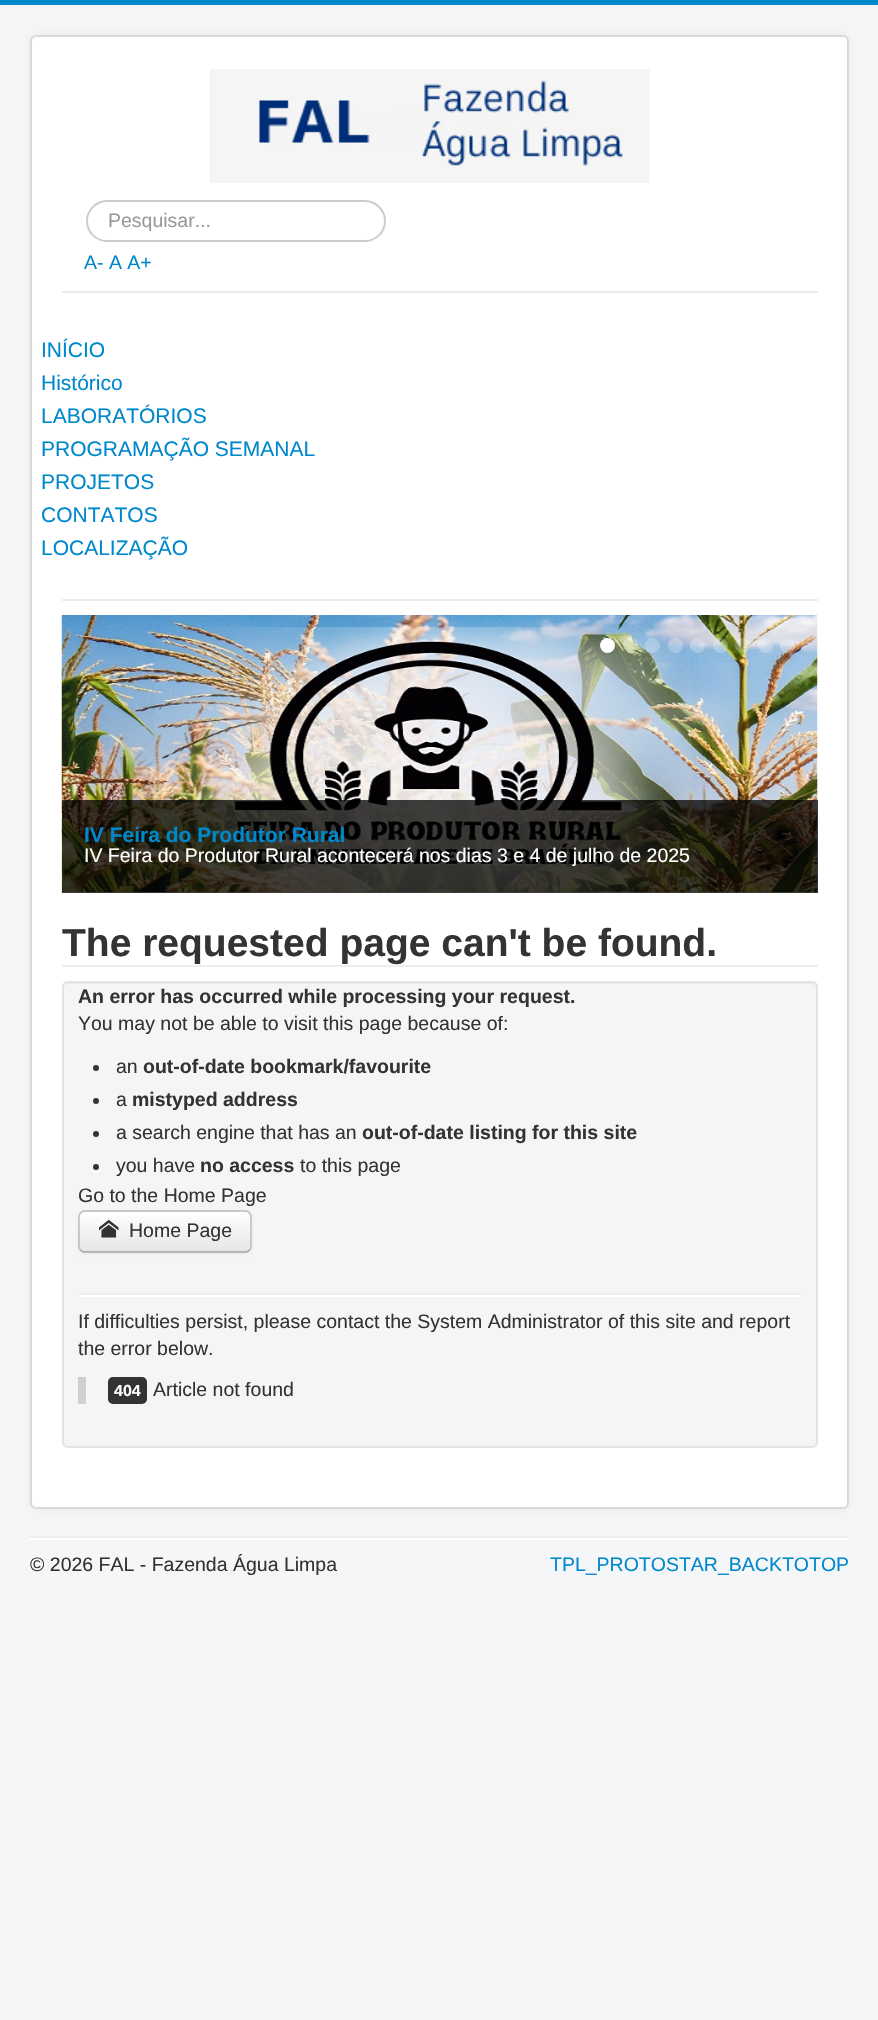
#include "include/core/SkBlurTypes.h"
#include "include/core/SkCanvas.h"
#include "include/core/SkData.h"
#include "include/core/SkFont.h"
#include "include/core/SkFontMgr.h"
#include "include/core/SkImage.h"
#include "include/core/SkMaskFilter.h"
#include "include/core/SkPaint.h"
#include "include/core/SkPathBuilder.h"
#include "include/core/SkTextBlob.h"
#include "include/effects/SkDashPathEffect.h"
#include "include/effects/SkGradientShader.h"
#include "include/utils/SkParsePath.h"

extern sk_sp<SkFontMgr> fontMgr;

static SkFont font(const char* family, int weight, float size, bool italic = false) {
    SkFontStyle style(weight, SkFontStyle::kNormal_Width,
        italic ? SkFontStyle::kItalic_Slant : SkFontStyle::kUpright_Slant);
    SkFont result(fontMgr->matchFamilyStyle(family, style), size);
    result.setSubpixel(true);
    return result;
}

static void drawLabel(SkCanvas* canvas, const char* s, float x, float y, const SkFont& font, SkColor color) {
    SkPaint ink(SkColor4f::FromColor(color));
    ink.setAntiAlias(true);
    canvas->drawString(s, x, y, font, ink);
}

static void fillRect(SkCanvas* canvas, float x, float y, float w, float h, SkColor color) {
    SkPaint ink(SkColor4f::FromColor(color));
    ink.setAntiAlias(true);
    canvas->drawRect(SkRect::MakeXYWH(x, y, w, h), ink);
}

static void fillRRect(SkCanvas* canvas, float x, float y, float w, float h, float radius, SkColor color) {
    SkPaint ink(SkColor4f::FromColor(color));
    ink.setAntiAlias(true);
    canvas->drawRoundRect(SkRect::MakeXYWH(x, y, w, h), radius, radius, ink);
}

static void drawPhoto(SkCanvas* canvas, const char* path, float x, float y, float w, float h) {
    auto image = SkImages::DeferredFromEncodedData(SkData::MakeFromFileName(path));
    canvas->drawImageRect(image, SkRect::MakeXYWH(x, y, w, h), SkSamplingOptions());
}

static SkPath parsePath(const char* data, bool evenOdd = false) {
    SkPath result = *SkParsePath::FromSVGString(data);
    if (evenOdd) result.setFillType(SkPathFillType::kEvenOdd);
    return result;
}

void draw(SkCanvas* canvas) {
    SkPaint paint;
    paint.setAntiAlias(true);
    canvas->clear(0xFFF4F6F7);
    fillRect(canvas, 0, 0, 878, 5, 0xFF0088CC);
    paint.setColor(0x0D000000);
    paint.setMaskFilter(SkMaskFilter::MakeBlur(kNormal_SkBlurStyle, 4.5f));
    canvas->drawRoundRect(SkRect::MakeXYWH(30, 35, 819, 1474), 6, 6, paint);
    paint.setMaskFilter(nullptr);
    fillRRect(canvas, 30, 35, 819, 1474, 6, 0xFFFFFFFF);
    paint.setStroke(true);
    paint.setStrokeWidth(2);
    paint.setColor(0x26000000);
    canvas->drawRoundRect(SkRect::MakeXYWH(31, 36, 817, 1472), 5, 5, paint);
    drawPhoto(canvas, "assets/img1.png", 210, 69, 440, 114);
    paint.setStroke(false);
    paint.setColor(0xFFECECEC);
    canvas->drawPath(parsePath("M106 202H364C375 202 384 211 384 221C384 210 375 201 364 201H106C96 201 87 210 87 221C87 211 96 202 106 202Z"), paint);
    paint.setStroke(true);
    paint.setColor(0xFFCCCCCC);
    canvas->drawRoundRect(SkRect::MakeXYWH(87, 201, 298, 40), 20, 20, paint);
    SkFont font1 = font("Liberation Sans", 400, 19.5f);
    drawLabel(canvas, "Pesquisar...", 108, 227, font1, 0xFF999999);
    drawLabel(canvas, "A- A A+", 84, 269, font1, 0xFF0088CC);
    fillRect(canvas, 62, 291, 756, 2, 0xFFECECEC);
    fillRect(canvas, 62, 599, 756, 2, 0xFFECECEC);
    SkFont font2 = font("Liberation Sans", 400, 21);
    drawLabel(canvas, "INÍCIO", 41, 357, font2, 0xFF0088CC);
    drawLabel(canvas, "Histórico", 41, 390, font2, 0xFF0088CC);
    drawLabel(canvas, "LABORATÓRIOS", 41, 423, font2, 0xFF0088CC);
    drawLabel(canvas, "PROGRAMAÇÃO SEMANAL", 41, 456, font2, 0xFF0088CC);
    drawLabel(canvas, "PROJETOS", 41, 489, font2, 0xFF0088CC);
    drawLabel(canvas, "CONTATOS", 41, 522, font2, 0xFF0088CC);
    drawLabel(canvas, "LOCALIZAÇÃO", 41, 555, font2, 0xFF0088CC);
    drawPhoto(canvas, "assets/img2.png", 61, 615, 757, 278);
    paint.setStroke(false);
    paint.setColor(0xFFFFFFFF);
    canvas->drawCircle(607.5f, 645.5f, 7.5f, paint);
    paint.setColor(0x40FFFFFF);
    canvas->drawCircle(630.5f, 645.5f, 7.5f, paint);
    canvas->drawCircle(652.5f, 645.5f, 7.5f, paint);
    canvas->drawCircle(675.5f, 645.5f, 7.5f, paint);
    canvas->drawCircle(697.5f, 645.5f, 7.5f, paint);
    canvas->drawCircle(720.5f, 645.5f, 7.5f, paint);
    canvas->drawCircle(742.5f, 645.5f, 7.5f, paint);
    canvas->drawCircle(765.5f, 645.5f, 7.5f, paint);
    canvas->drawCircle(787.5f, 645.5f, 7.5f, paint);
    fillRect(canvas, 62, 800, 756, 93, 0xBF000000);
    SkFont font3 = font("Liberation Sans", 700, 21);
    drawLabel(canvas, "IV Feira do Produtor Rural", 84, 842, font3, 0xFF0088CC);
    drawLabel(canvas, "IV Feira do Produtor Rural acontecerá nos dias 3 e 4 de julho de 2025", 84, 862, font1, 0xFFFFFFFF);
    fillRect(canvas, 62, 965, 756, 2, 0xFFEEEEEE);
    SkFont font4 = font("Liberation Sans", 700, 39);
    drawLabel(canvas, "The requested page can't be found.", 62, 956, font4, 0xFF333333);
    fillRRect(canvas, 62, 981, 756, 467, 6, 0xFFF5F5F5);
    paint.setColor(0xFFE9E9E9);
    canvas->drawPath(parsePath("M68 984H812C814 984 816 986 816 988C816 985 814 983 811 983H68C65 983 63 985 63 988C63 986 65 984 68 984Z"), paint);
    paint.setStroke(true);
    paint.setColor(0xFFE3E3E3);
    canvas->drawRoundRect(SkRect::MakeXYWH(63, 982, 754, 465), 5, 5, paint);
    SkFont font5 = font("Liberation Sans", 700, 19.5f);
    drawLabel(canvas, "An error has occurred while processing your request.", 78, 1003, font5, 0xFF333333);
    drawLabel(canvas, "You may not be able to visit this page because of:", 78, 1030, font1, 0xFF333333);
    paint.setStroke(false);
    paint.setColor(0xFF333333);
    canvas->drawCircle(96, 1068, 3, paint);
    drawLabel(canvas, "an", 116, 1073, font1, 0xFF333333);
    drawLabel(canvas, "out-of-date bookmark/favourite", 143, 1073, font5, 0xFF333333);
    canvas->drawCircle(96, 1101, 3, paint);
    drawLabel(canvas, "a", 116, 1106, font1, 0xFF333333);
    drawLabel(canvas, "mistyped address", 132, 1106, font5, 0xFF333333);
    canvas->drawCircle(96, 1134, 3, paint);
    drawLabel(canvas, "a search engine that has an", 116, 1139, font1, 0xFF333333);
    drawLabel(canvas, "out-of-date listing for this site", 362, 1139, font5, 0xFF333333);
    canvas->drawCircle(96, 1167, 3, paint);
    drawLabel(canvas, "you have", 116, 1172, font1, 0xFF333333);
    drawLabel(canvas, "no access", 200, 1172, font5, 0xFF333333);
    drawLabel(canvas, "to this page", 300, 1172, font1, 0xFF333333);
    drawLabel(canvas, "Go to the Home Page", 78, 1202, font1, 0xFF333333);
    paint.setColor(0x0D000000);
    paint.setMaskFilter(SkMaskFilter::MakeBlur(kNormal_SkBlurStyle, 1.5f));
    canvas->drawRoundRect(SkRect::MakeXYWH(78, 1212, 174, 42), 6, 6, paint);
    paint.setMaskFilter(nullptr);
    fillRRect(canvas, 78, 1211, 174, 42, 6, 0xFFF5F5F5);
    canvas->save();
    canvas->clipPath(parsePath("M84 1211H246C249.5 1211 252 1213.5 252 1217V1247C252 1250.5 249.5 1253 246 1253H84C80.5 1253 78 1250.5 78 1247V1217C78 1213.5 80.5 1211 84 1211Z"), true);
    {
        const SkColor colors[] = {0xFFFFFFFF, 0xFFE6E6E6};
        const float stops[] = {0, 1};
        const SkPoint ends[] = {{165, 1212}, {165, 1251}};
        paint.setShader(SkGradientShader::MakeLinear(ends, colors, stops, 2, SkTileMode::kClamp));
        paint.setAlpha(255);
    }
    canvas->drawRect(SkRect::MakeXYWH(78, 1212, 174, 39), paint);
    canvas->restore();
    paint.setShader(nullptr);
    paint.setColor(0x33FFFFFF);
    canvas->drawPath(parsePath("M84 1214H246C252 1214 250 1225 250 1228V1249C251 1248 251 1247 251 1246V1217C251 1214 249 1212 246 1212H85C82 1212 80 1214 80 1217V1218C80 1216 82 1214 84 1214Z"), paint);
    paint.setStroke(true);
    paint.setStrokeWidth(1.5f);
    paint.setColor(0xFFA2A2A2);
    canvas->drawPath(parsePath("M249.5 1250C248.5 1251 247.5 1252 246 1252H84C82.5 1252 81.5 1251 80.5 1250"), paint);
    paint.setColor(0xFFBBBBBB);
    canvas->drawPath(parsePath("M80.5 1250C79.5 1249 79 1248 79 1246.5V1216.5C79 1215 79.5 1214 80.5 1213C81.5 1212 82.5 1211 84 1211H246C247.5 1211 248.5 1212 249.5 1213C250.5 1214 251 1215 251 1216.5V1246.5C251 1248 250.5 1249 249.5 1250"), paint);
    drawPhoto(canvas, "assets/img3.png", 99, 1219, 20, 19);
    drawLabel(canvas, "Home Page", 129, 1237, font1, 0xFF333333);
    fillRect(canvas, 78, 1293, 723, 2, 0xFFEEEEEE);
    fillRect(canvas, 78, 1295, 723, 2, 0xFFFFFFFF);
    drawLabel(canvas, "If difficulties persist, please contact the System Administrator of this site and report", 78, 1328, font1, 0xFF333333);
    drawLabel(canvas, "the error below.", 78, 1355, font1, 0xFF333333);
    fillRect(canvas, 78, 1377, 8, 27, 0xFFD0D0D0);
    fillRRect(canvas, 108, 1377, 39, 27, 5, 0xFF333333);
    SkFont font6 = font("Liberation Sans", 700, 16);
    drawLabel(canvas, "404", 114, 1396, font6, 0xFFFFFFFF);
    drawLabel(canvas, "Article not found", 153, 1396, font1, 0xFF333333);
    fillRect(canvas, 30, 1536, 819, 2, 0xFFEEEEEE);
    fillRect(canvas, 30, 1538, 819, 2, 0xFFFFFFFF);
    drawLabel(canvas, "© 2026 FAL - Fazenda Água Limpa", 30, 1571, font1, 0xFF333333);
    drawLabel(canvas, "TPL_PROTOSTAR_BACKTOTOP", 550, 1571, font1, 0xFF0088CC);
}
